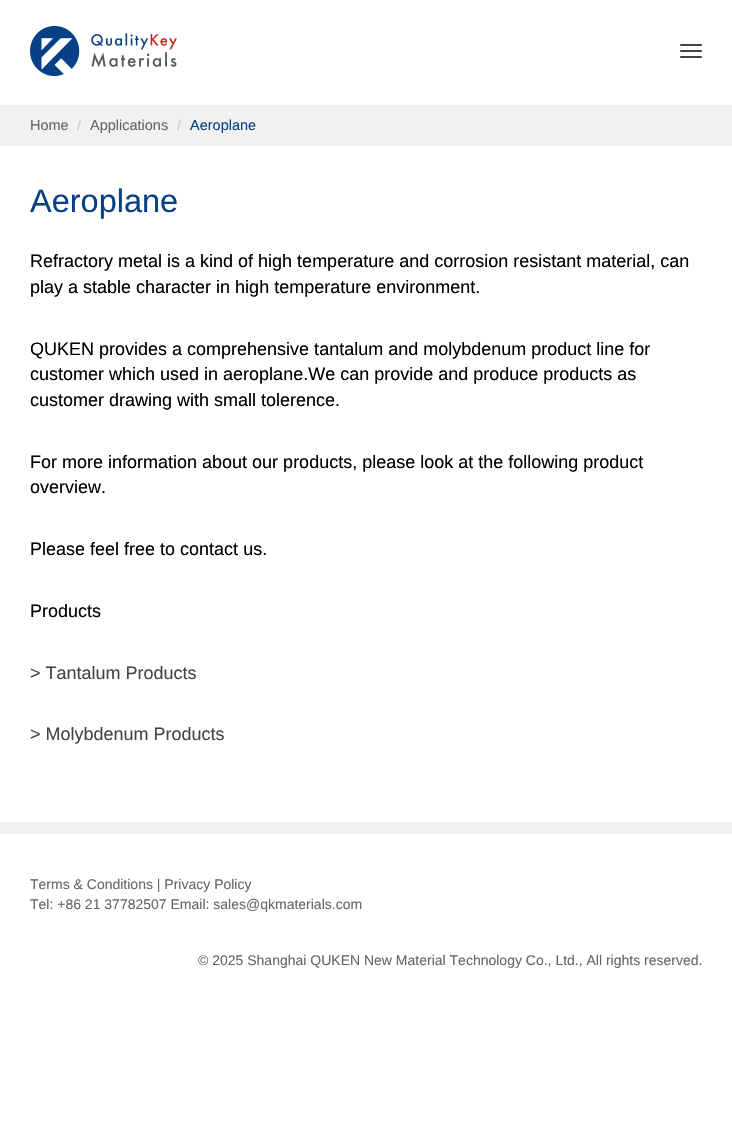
#include "include/core/SkBlurTypes.h"
#include "include/core/SkCanvas.h"
#include "include/core/SkData.h"
#include "include/core/SkFont.h"
#include "include/core/SkFontMgr.h"
#include "include/core/SkImage.h"
#include "include/core/SkMaskFilter.h"
#include "include/core/SkPaint.h"
#include "include/core/SkPathBuilder.h"
#include "include/core/SkTextBlob.h"
#include "include/effects/SkDashPathEffect.h"
#include "include/effects/SkGradientShader.h"
#include "include/utils/SkParsePath.h"

extern sk_sp<SkFontMgr> fontMgr;

static SkFont font(const char* family, int weight, float size, bool italic = false) {
    SkFontStyle style(weight, SkFontStyle::kNormal_Width,
        italic ? SkFontStyle::kItalic_Slant : SkFontStyle::kUpright_Slant);
    SkFont result(fontMgr->matchFamilyStyle(family, style), size);
    result.setSubpixel(true);
    return result;
}

static void drawLabel(SkCanvas* canvas, const char* s, float x, float y, const SkFont& font, SkColor color) {
    SkPaint ink(SkColor4f::FromColor(color));
    ink.setAntiAlias(true);
    canvas->drawString(s, x, y, font, ink);
}

static void fillRect(SkCanvas* canvas, float x, float y, float w, float h, SkColor color) {
    SkPaint ink(SkColor4f::FromColor(color));
    ink.setAntiAlias(true);
    canvas->drawRect(SkRect::MakeXYWH(x, y, w, h), ink);
}

static void fillRRect(SkCanvas* canvas, float x, float y, float w, float h, float radius, SkColor color) {
    SkPaint ink(SkColor4f::FromColor(color));
    ink.setAntiAlias(true);
    canvas->drawRoundRect(SkRect::MakeXYWH(x, y, w, h), radius, radius, ink);
}

static void drawPhoto(SkCanvas* canvas, const char* path, float x, float y, float w, float h) {
    auto image = SkImages::DeferredFromEncodedData(SkData::MakeFromFileName(path));
    canvas->drawImageRect(image, SkRect::MakeXYWH(x, y, w, h), SkSamplingOptions());
}

void draw(SkCanvas* canvas) {
    SkPaint paint;
    paint.setAntiAlias(true);
    canvas->clear(0xFFFFFFFF);
    drawPhoto(canvas, "assets/img1.png", 30, 26, 147, 50);
    fillRRect(canvas, 680, 44, 22, 2, 1, 0xFF444444);
    fillRRect(canvas, 680, 50, 22, 2, 1, 0xFF444444);
    fillRRect(canvas, 680, 56, 22, 2, 1, 0xFF444444);
    fillRect(canvas, 0, 105, 732, 41, 0xFFF1F1F1);
    SkFont font1 = font("Liberation Sans", 400, 14.5f);
    drawLabel(canvas, "Home", 30, 130, font1, 0xFF666666);
    drawLabel(canvas, "/", 77, 130, font1, 0xFFCCCCCC);
    drawLabel(canvas, "Applications", 90, 130, font1, 0xFF666666);
    drawLabel(canvas, "/", 177, 130, font1, 0xFFCCCCCC);
    drawLabel(canvas, "Aeroplane", 190, 130, font1, 0xFF064086);
    SkFont font2 = font("Liberation Sans", 400, 32.5f);
    drawLabel(canvas, "Aeroplane", 30, 212, font2, 0xFF064086);
    SkFont font3 = font("Liberation Sans", 400, 18);
    drawLabel(canvas, "Refractory metal is a kind of high temperature and corrosion resistant material, can", 30, 267, font3, 0xFF000000);
    drawLabel(canvas, "play a stable character in high temperature environment.", 30, 293, font3, 0xFF000000);
    drawLabel(canvas, "QUKEN provides a comprehensive tantalum and molybdenum product line for", 30, 355, font3, 0xFF000000);
    drawLabel(canvas, "customer which used in aeroplane.We can provide and produce products as", 30, 380, font3, 0xFF000000);
    drawLabel(canvas, "customer drawing with small tolerence.", 30, 406, font3, 0xFF000000);
    drawLabel(canvas, "For more information about our products, please look at the following product", 30, 468, font3, 0xFF000000);
    drawLabel(canvas, "overview.", 30, 493, font3, 0xFF000000);
    drawLabel(canvas, "Please feel free to contact us.", 30, 555, font3, 0xFF000000);
    drawLabel(canvas, "Products", 30, 617, font3, 0xFF000000);
    drawLabel(canvas, "> Tantalum Products", 30, 679, font3, 0xFF444444);
    drawLabel(canvas, "> Molybdenum Products", 30, 740, font3, 0xFF444444);
    fillRect(canvas, 0, 822, 732, 12, 0xFFF1F1F1);
    SkFont font4 = font("Liberation Sans", 400, 14);
    drawLabel(canvas, "Terms & Conditions | Privacy Policy", 30, 889, font4, 0xFF666666);
    drawLabel(canvas, "Tel: +86 21 37782507 Email: sales@qkmaterials.com", 30, 909, font4, 0xFF666666);
    drawLabel(canvas, "© 2025 Shanghai QUKEN New Material Technology Co., Ltd., All rights reserved.", 198, 965, font4, 0xFF666666);
}
